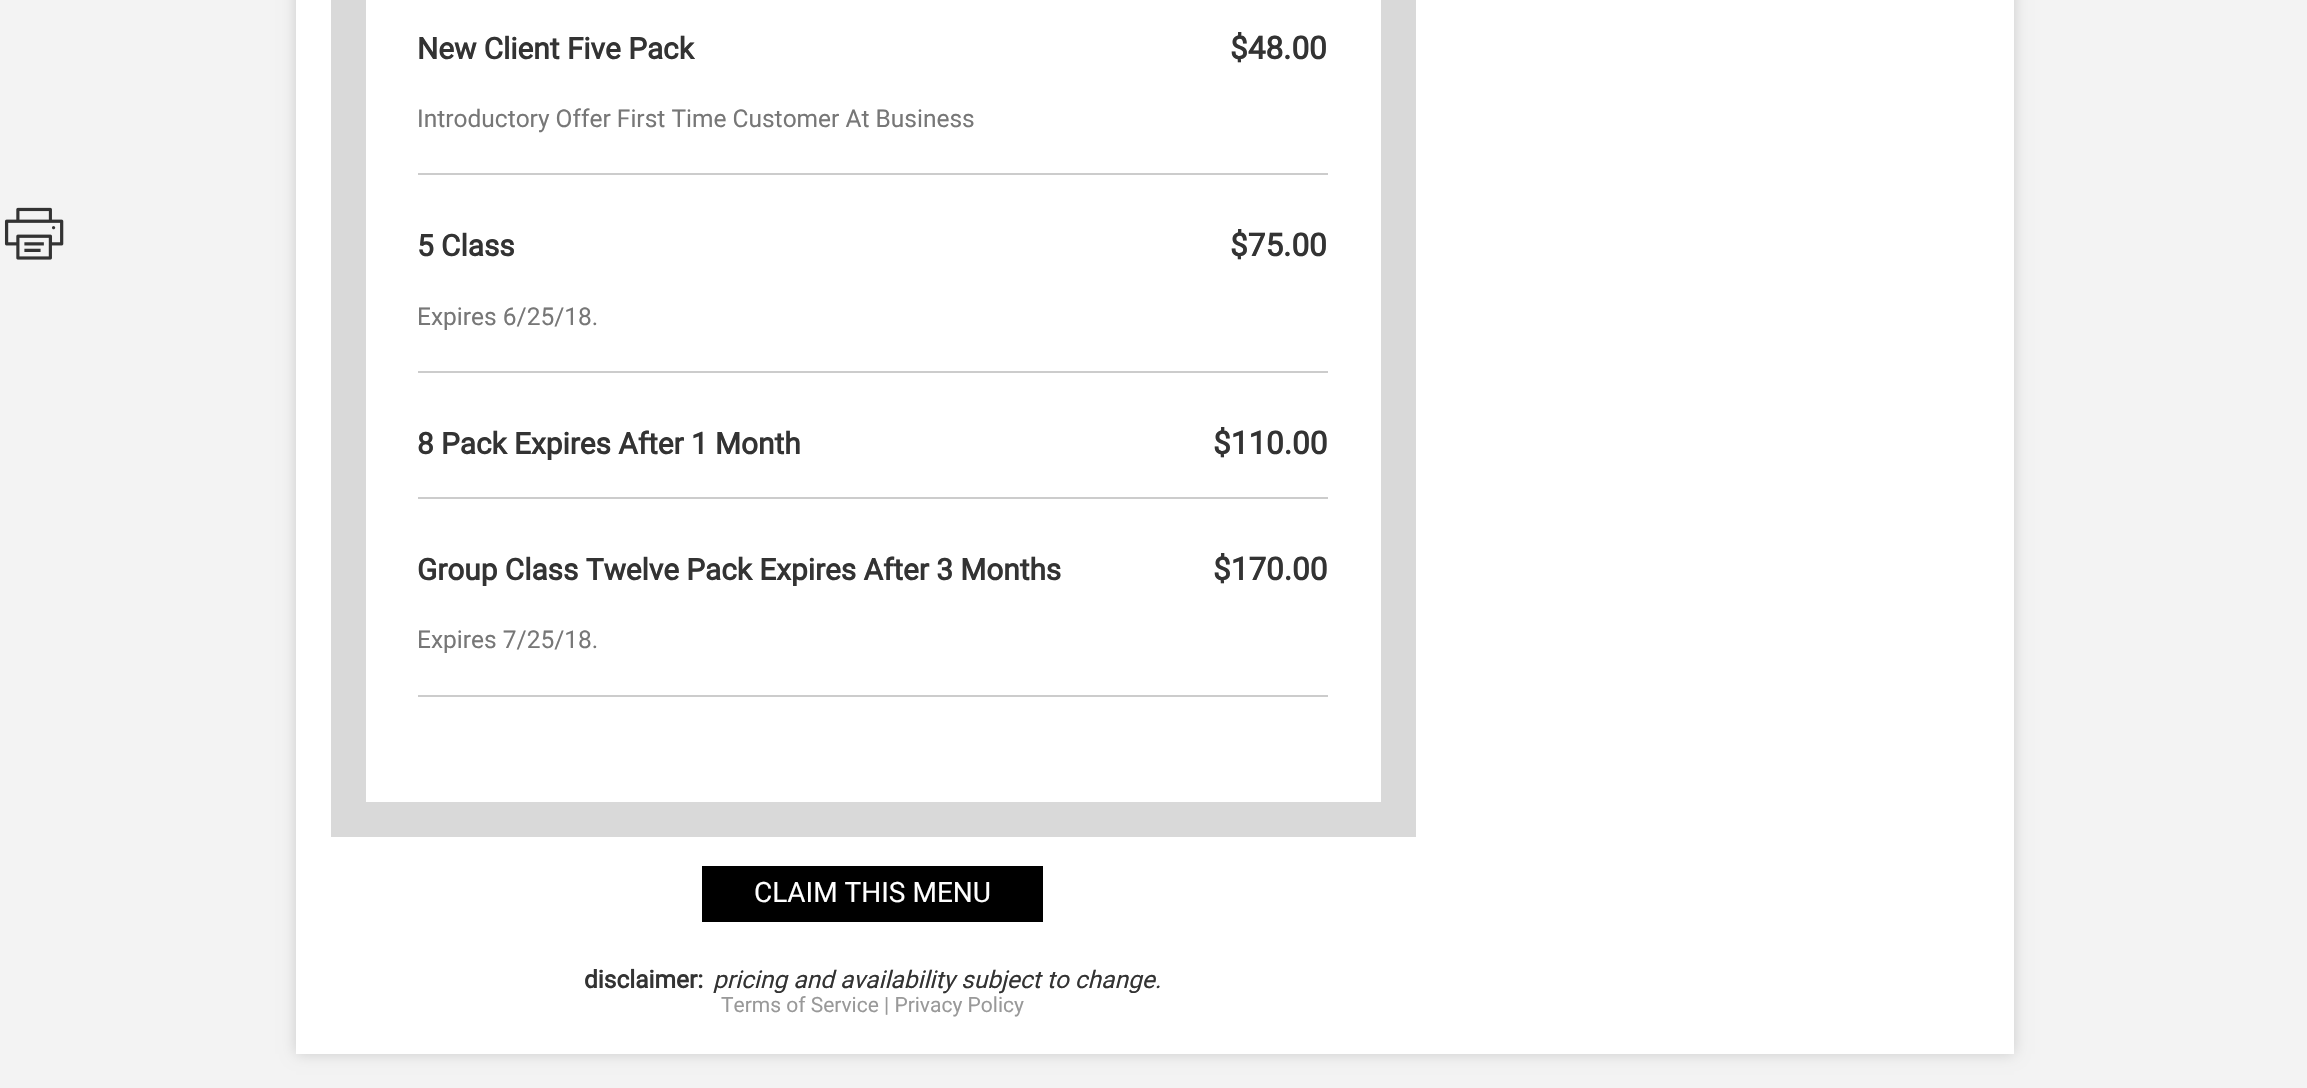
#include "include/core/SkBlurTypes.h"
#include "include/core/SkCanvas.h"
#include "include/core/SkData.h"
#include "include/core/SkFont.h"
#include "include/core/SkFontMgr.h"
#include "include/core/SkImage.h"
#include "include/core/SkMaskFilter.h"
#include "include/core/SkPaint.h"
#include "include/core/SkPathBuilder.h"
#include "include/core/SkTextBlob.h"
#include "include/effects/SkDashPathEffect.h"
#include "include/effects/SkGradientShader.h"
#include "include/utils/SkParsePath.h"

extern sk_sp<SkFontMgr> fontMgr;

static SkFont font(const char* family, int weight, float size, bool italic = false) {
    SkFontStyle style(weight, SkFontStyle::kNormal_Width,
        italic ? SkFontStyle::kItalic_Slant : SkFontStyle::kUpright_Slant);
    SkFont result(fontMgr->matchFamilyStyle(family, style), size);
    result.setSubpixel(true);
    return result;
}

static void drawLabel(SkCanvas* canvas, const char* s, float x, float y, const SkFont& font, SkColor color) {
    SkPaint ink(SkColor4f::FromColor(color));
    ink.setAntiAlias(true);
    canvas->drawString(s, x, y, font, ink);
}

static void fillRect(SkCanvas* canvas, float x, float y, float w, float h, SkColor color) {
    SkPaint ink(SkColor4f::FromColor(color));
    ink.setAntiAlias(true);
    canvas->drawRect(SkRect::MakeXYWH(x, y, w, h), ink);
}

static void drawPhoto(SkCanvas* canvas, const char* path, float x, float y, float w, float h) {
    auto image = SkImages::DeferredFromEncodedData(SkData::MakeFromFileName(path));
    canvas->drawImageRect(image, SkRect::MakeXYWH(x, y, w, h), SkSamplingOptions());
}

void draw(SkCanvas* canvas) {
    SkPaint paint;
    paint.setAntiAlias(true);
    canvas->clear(0xFFF3F3F3);
    paint.setColor(0xFFCCCCCC);
    paint.setMaskFilter(SkMaskFilter::MakeBlur(kNormal_SkBlurStyle, 7));
    canvas->drawRect(SkRect::MakeXYWH(296, -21, 1718, 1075), paint);
    paint.setMaskFilter(nullptr);
    fillRect(canvas, 296, 0, 1718, 1054, 0xFFFFFFFF);
    drawPhoto(canvas, "assets/img1.png", 4, 207, 60, 53);
    paint.setStroke(true);
    paint.setStrokeWidth(35);
    paint.setColor(0xFFD9D9D9);
    canvas->drawRect(SkRect::MakeXYWH(348.5f, -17.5f, 1050, 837), paint);
    SkFont font1 = font("Roboto", 700, 29.75f);
    drawLabel(canvas, "New Client Five Pack", 417, 59, font1, 0xFF333333);
    SkFont font2 = font("Roboto", 700, 31.5f);
    drawLabel(canvas, "$48.00", 1230, 59, font2, 0xFF333333);
    SkFont font3 = font("Roboto", 400, 24.5f);
    drawLabel(canvas, "Introductory Offer First Time Customer At Business", 417, 127, font3, 0xFF777777);
    fillRect(canvas, 418, 173, 910, 2, 0xFFCCCCCC);
    drawLabel(canvas, "5 Class", 417, 256, font1, 0xFF333333);
    drawLabel(canvas, "$75.00", 1230, 256, font2, 0xFF333333);
    drawLabel(canvas, "Expires 6/25/18.", 417, 325, font3, 0xFF777777);
    fillRect(canvas, 418, 371, 910, 2, 0xFFCCCCCC);
    drawLabel(canvas, "8 Pack Expires After 1 Month", 417, 454, font1, 0xFF333333);
    drawLabel(canvas, "$110.00", 1213, 454, font2, 0xFF333333);
    fillRect(canvas, 418, 497, 910, 2, 0xFFCCCCCC);
    drawLabel(canvas, "Group Class Twelve Pack Expires After 3 Months", 417, 580, font1, 0xFF333333);
    drawLabel(canvas, "$170.00", 1213, 580, font2, 0xFF333333);
    drawLabel(canvas, "Expires 7/25/18.", 417, 648, font3, 0xFF777777);
    fillRect(canvas, 418, 695, 910, 2, 0xFFCCCCCC);
    fillRect(canvas, 702, 866, 341, 56, 0xFF000000);
    SkFont font4 = font("Roboto", 400, 28);
    drawLabel(canvas, "CLAIM THIS MENU", 754, 902, font4, 0xFFFFFFFF);
    SkFont font5 = font("Roboto", 700, 24.5f);
    drawLabel(canvas, "disclaimer:", 584, 988, font5, 0xFF333333);
    SkFont font6 = font("Roboto", 400, 24.5f, true);
    drawLabel(canvas, "pricing and availability subject to change.", 713, 988, font6, 0xFF333333);
    SkFont font7 = font("Roboto", 400, 21);
    drawLabel(canvas, "Terms of Service | Privacy Policy", 721, 1012, font7, 0xFF999999);
}
